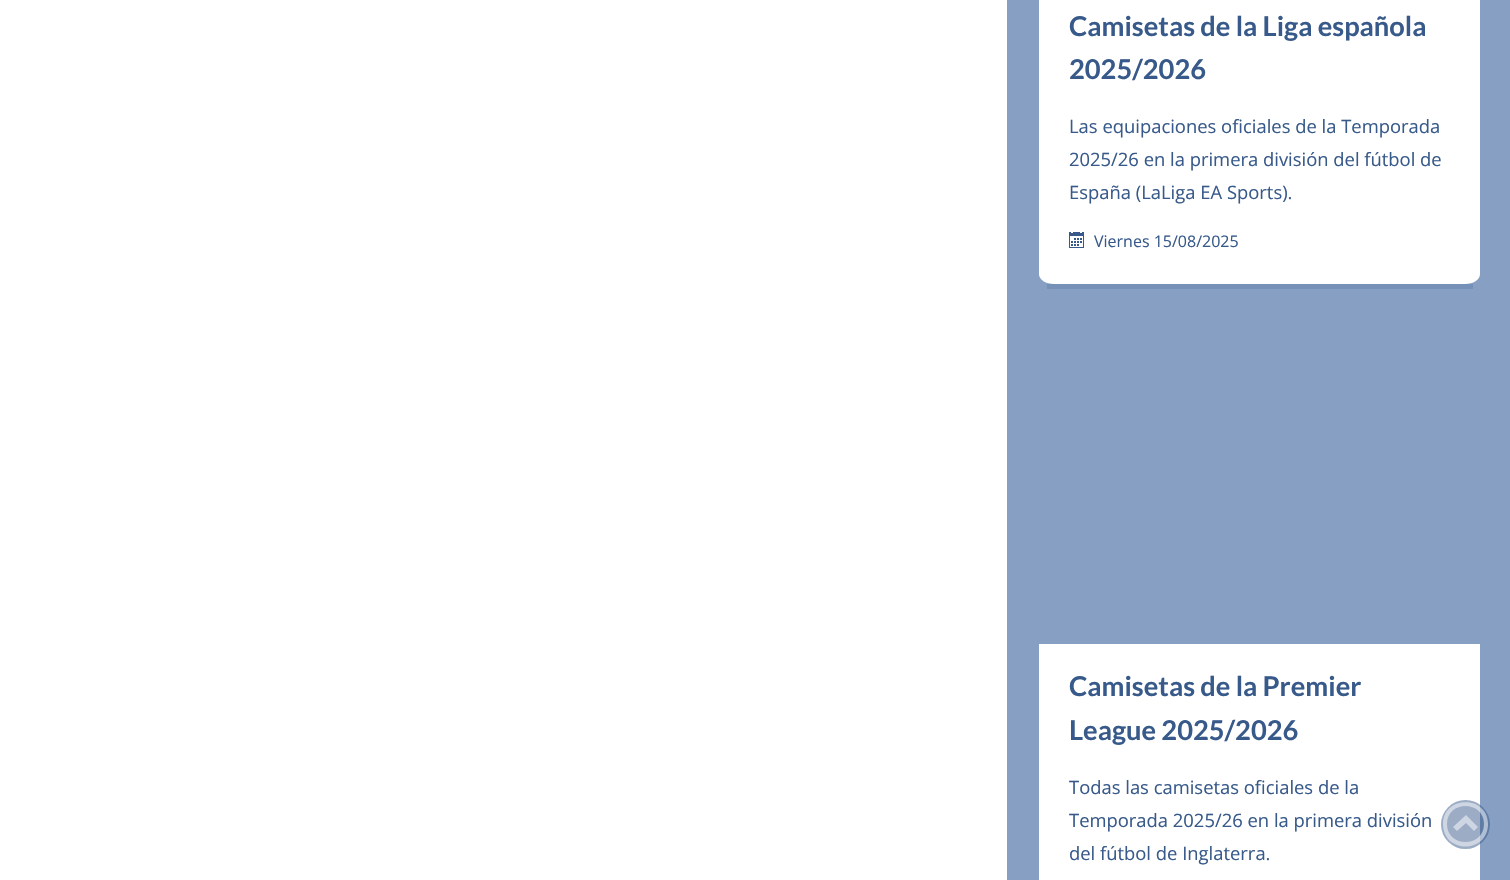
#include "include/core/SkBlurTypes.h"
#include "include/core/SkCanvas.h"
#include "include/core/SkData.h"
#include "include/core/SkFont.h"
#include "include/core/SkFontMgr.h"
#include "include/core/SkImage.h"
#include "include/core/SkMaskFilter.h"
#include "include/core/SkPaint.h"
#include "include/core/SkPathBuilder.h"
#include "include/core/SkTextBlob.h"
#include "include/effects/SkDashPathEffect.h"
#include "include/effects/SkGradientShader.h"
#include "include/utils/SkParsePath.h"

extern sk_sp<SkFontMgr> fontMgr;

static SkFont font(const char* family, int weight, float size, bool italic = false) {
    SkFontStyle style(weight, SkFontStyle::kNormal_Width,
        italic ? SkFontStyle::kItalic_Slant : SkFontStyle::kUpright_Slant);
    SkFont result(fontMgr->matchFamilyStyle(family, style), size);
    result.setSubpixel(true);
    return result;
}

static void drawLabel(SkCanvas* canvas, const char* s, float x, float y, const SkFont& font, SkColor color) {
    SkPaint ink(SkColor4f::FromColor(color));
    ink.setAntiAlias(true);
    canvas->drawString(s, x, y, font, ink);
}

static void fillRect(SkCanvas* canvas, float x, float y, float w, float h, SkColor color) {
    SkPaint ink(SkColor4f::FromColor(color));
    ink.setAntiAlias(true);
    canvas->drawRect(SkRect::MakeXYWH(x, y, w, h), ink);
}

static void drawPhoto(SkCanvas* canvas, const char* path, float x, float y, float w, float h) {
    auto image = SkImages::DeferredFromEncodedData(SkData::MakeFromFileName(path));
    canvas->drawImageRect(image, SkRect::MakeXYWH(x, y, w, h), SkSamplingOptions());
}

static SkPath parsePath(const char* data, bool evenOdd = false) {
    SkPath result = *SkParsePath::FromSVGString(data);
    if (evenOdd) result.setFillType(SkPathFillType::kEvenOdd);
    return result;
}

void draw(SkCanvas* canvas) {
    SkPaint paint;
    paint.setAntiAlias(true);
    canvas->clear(0xFFFFFFFF);
    fillRect(canvas, 1007, 0, 503, 880, 0xFF869FC3);
    fillRect(canvas, 1047, 284, 426, 5, 0xFF7691B8);
    paint.setColor(0xFFFFFFFF);
    canvas->drawPath(parsePath("M1039-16V274C1039 280 1046 284 1054 284H1465C1473 284 1480 280 1480 274V-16Z"), paint);
    SkFont font1 = font("Lato", 700, 27.25f);
    drawLabel(canvas, "Camisetas de la Liga española", 1069, 36, font1, 0xFF385A8A);
    drawLabel(canvas, "2025/2026", 1069, 79, font1, 0xFF385A8A);
    SkFont font2 = font("Open Sans", 400, 18.4f);
    drawLabel(canvas, "Las equipaciones oficiales de la Temporada", 1069, 133, font2, 0xFF385A8A);
    drawLabel(canvas, "2025/26 en la primera división del fútbol de", 1069, 166, font2, 0xFF385A8A);
    drawLabel(canvas, "España (LaLiga EA Sports).", 1069, 199, font2, 0xFF385A8A);
    drawPhoto(canvas, "assets/img1.png", 1069, 232, 15, 16);
    SkFont font3 = font("Open Sans", 400, 16);
    drawLabel(canvas, "Viernes 15/08/2025", 1094, 247, font3, 0xFF385A8A);
    canvas->drawPath(parsePath("M1039 644V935C1039 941 1046 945 1054 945H1465C1473 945 1480 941 1480 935V644Z"), paint);
    drawLabel(canvas, "Camisetas de la Premier", 1069, 696, font1, 0xFF385A8A);
    drawLabel(canvas, "League 2025/2026", 1069, 740, font1, 0xFF385A8A);
    drawLabel(canvas, "Todas las camisetas oficiales de la", 1069, 794, font2, 0xFF385A8A);
    drawLabel(canvas, "Temporada 2025/26 en la primera división", 1069, 827, font2, 0xFF385A8A);
    drawLabel(canvas, "del fútbol de Inglaterra.", 1069, 860, font2, 0xFF385A8A);
    paint.setColor(0x80385A8A);
    canvas->drawCircle(1465.5f, 824.5f, 24.5f, paint);
    paint.setColor(0x80FFFFFF);
    canvas->drawPath(parsePath("M1443 824C1443 854 1488 854 1488 824C1488 795 1443 795 1443 824ZM1484 824C1484 848 1447 848 1447 824C1447 800 1484 800 1484 824ZM1474 831L1478 827L1466 815L1453 827L1457 831L1466 823Z"), paint);
}
